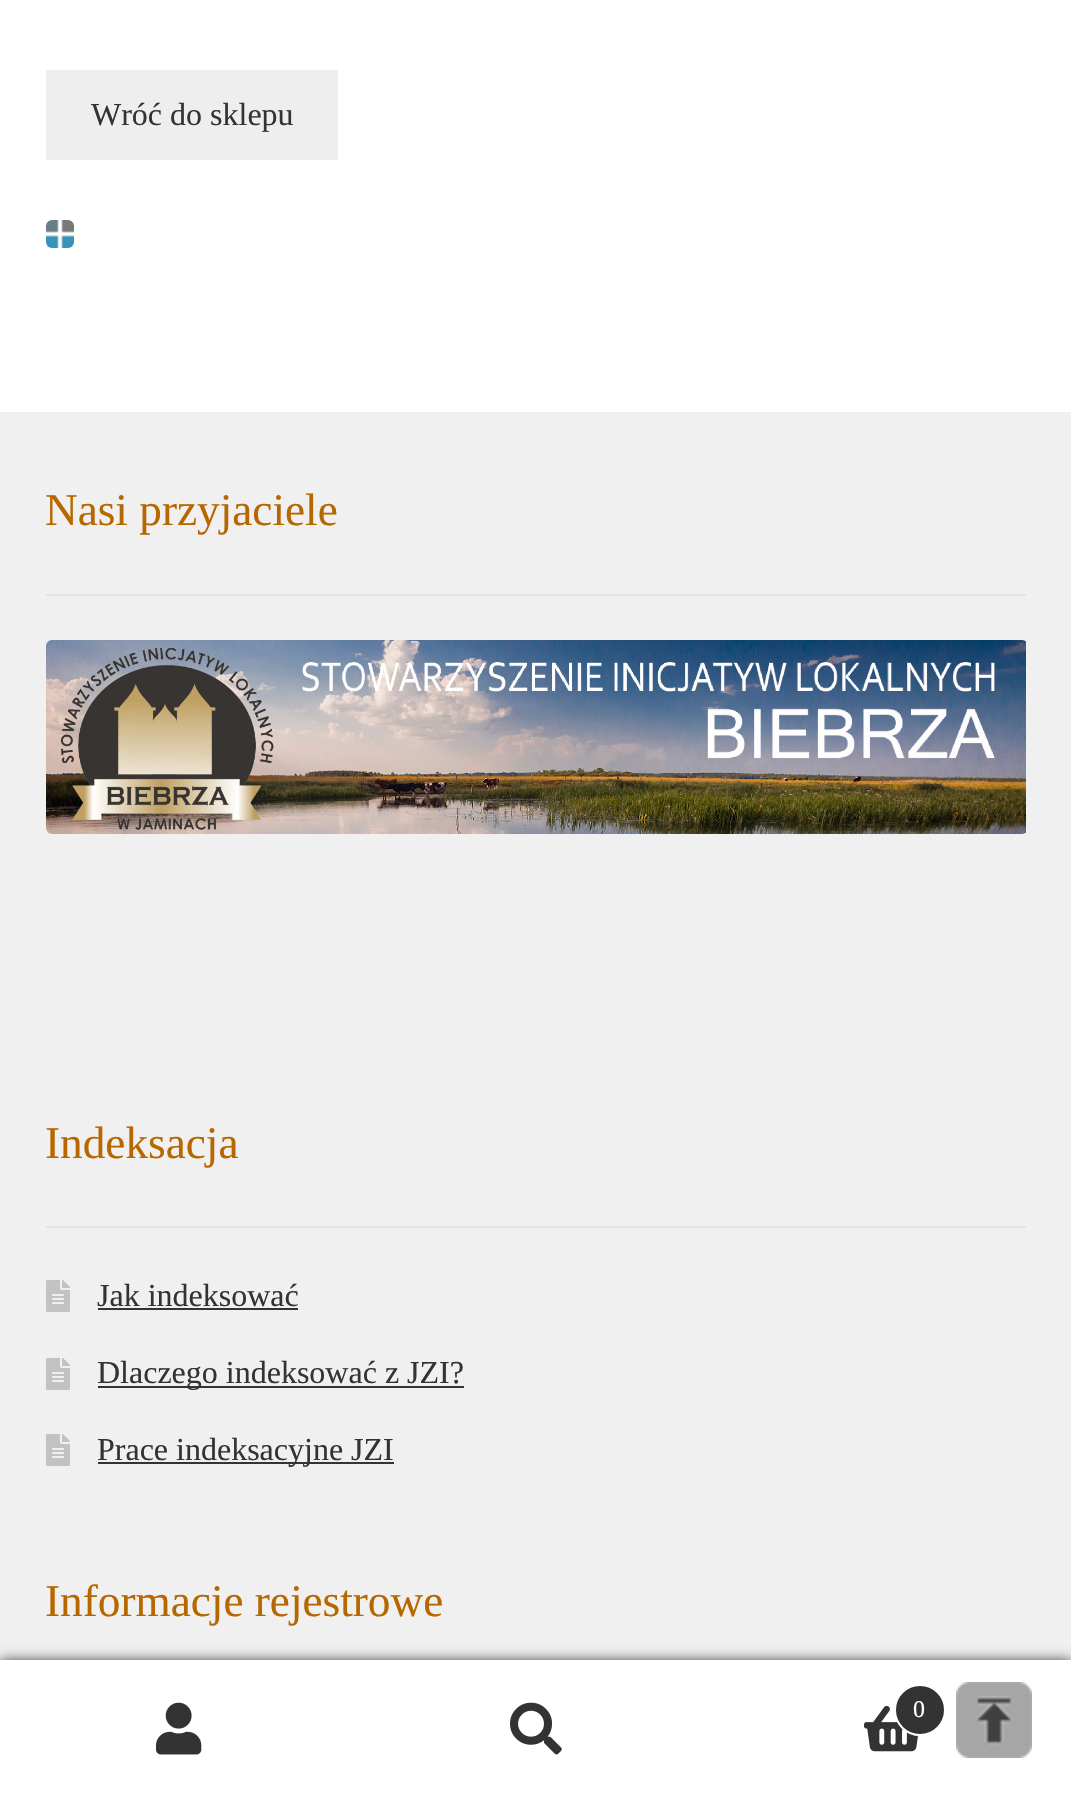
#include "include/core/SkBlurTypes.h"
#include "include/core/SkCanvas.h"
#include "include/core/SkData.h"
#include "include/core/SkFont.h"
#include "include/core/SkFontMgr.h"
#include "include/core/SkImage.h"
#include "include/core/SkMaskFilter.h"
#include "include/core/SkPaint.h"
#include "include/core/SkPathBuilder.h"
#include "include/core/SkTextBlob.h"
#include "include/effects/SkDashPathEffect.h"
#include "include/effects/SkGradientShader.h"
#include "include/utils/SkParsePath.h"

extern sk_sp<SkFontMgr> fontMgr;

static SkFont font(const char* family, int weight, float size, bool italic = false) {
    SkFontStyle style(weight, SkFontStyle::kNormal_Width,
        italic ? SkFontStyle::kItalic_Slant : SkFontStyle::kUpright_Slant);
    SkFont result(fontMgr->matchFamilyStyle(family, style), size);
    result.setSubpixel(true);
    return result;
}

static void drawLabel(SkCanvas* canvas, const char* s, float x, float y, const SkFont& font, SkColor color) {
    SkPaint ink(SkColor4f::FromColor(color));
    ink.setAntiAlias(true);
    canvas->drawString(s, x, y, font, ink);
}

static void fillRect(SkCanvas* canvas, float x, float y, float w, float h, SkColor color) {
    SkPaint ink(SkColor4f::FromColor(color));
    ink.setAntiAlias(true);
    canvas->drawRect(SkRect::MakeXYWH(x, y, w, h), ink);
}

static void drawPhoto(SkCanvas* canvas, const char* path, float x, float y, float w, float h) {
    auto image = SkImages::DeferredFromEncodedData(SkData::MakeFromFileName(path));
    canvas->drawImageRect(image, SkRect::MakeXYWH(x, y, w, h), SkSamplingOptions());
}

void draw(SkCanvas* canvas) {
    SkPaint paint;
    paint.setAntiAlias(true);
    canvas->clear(0xFFFFFFFF);
    fillRect(canvas, 46, 70, 292, 90, 0xFFEEEEEE);
    SkFont font1 = font("Liberation Serif", 400, 32);
    drawLabel(canvas, "Wróć do sklepu", 91, 125, font1, 0xFF333333);
    drawPhoto(canvas, "assets/img1.png", 46, 220, 28, 28);
    fillRect(canvas, 0, 412, 1071, 1248, 0xFFF0F0F0);
    fillRect(canvas, 46, 594, 980, 2, 0xFFE4E4E4);
    SkFont font2 = font("Liberation Serif", 400, 45.25f);
    drawLabel(canvas, "Nasi przyjaciele", 45, 525, font2, 0xFFB76700);
    drawPhoto(canvas, "assets/img2.png", 46, 640, 980, 194);
    fillRect(canvas, 46, 1226, 980, 2, 0xFFE4E4E4);
    drawLabel(canvas, "Indeksacja", 45, 1158, font2, 0xFFB76700);
    drawPhoto(canvas, "assets/img3.png", 46, 1280, 24, 32);
    drawLabel(canvas, "Jak indeksować", 97, 1306, font1, 0xFF333333);
    fillRect(canvas, 98, 1308, 200, 2, 0xFF333333);
    drawPhoto(canvas, "assets/img3.png", 46, 1358, 24, 32);
    fillRect(canvas, 98, 1386, 366, 2, 0xFF333333);
    drawLabel(canvas, "Dlaczego indeksować z JZI?", 97, 1383, font1, 0xFF333333);
    drawPhoto(canvas, "assets/img3.png", 46, 1434, 24, 32);
    fillRect(canvas, 98, 1462, 296, 2, 0xFF333333);
    drawLabel(canvas, "Prace indeksacyjne JZI", 97, 1460, font1, 0xFF333333);
    drawLabel(canvas, "Informacje rejestrowe", 45, 1616, font2, 0xFFB76700);
    paint.setColor(0xB3000000);
    paint.setMaskFilter(SkMaskFilter::MakeBlur(kNormal_SkBlurStyle, 6));
    canvas->drawRect(SkRect::MakeXYWH(0, 1660, 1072, 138), paint);
    paint.setMaskFilter(nullptr);
    fillRect(canvas, 0, 1660, 1071, 2, 0xFFFFFFFF);
    fillRect(canvas, 0, 1662, 1071, 135, 0xFFFFFFFF);
    drawPhoto(canvas, "assets/img4.png", 156, 1702, 46, 53);
    drawPhoto(canvas, "assets/img5.png", 510, 1702, 52, 53);
    drawPhoto(canvas, "assets/img6.png", 864, 1705, 55, 47);
    paint.setColor(0xFF333333);
    canvas->drawCircle(920, 1710, 25, paint);
    paint.setStroke(true);
    paint.setStrokeWidth(2);
    paint.setColor(0xFFFFFFFF);
    canvas->drawCircle(920, 1710, 25, paint);
    SkFont font3 = font("Liberation Serif", 400, 24);
    drawLabel(canvas, "0", 913, 1717, font3, 0xFFFFFFFF);
    drawPhoto(canvas, "assets/img7.png", 956, 1682, 76, 76);
}
